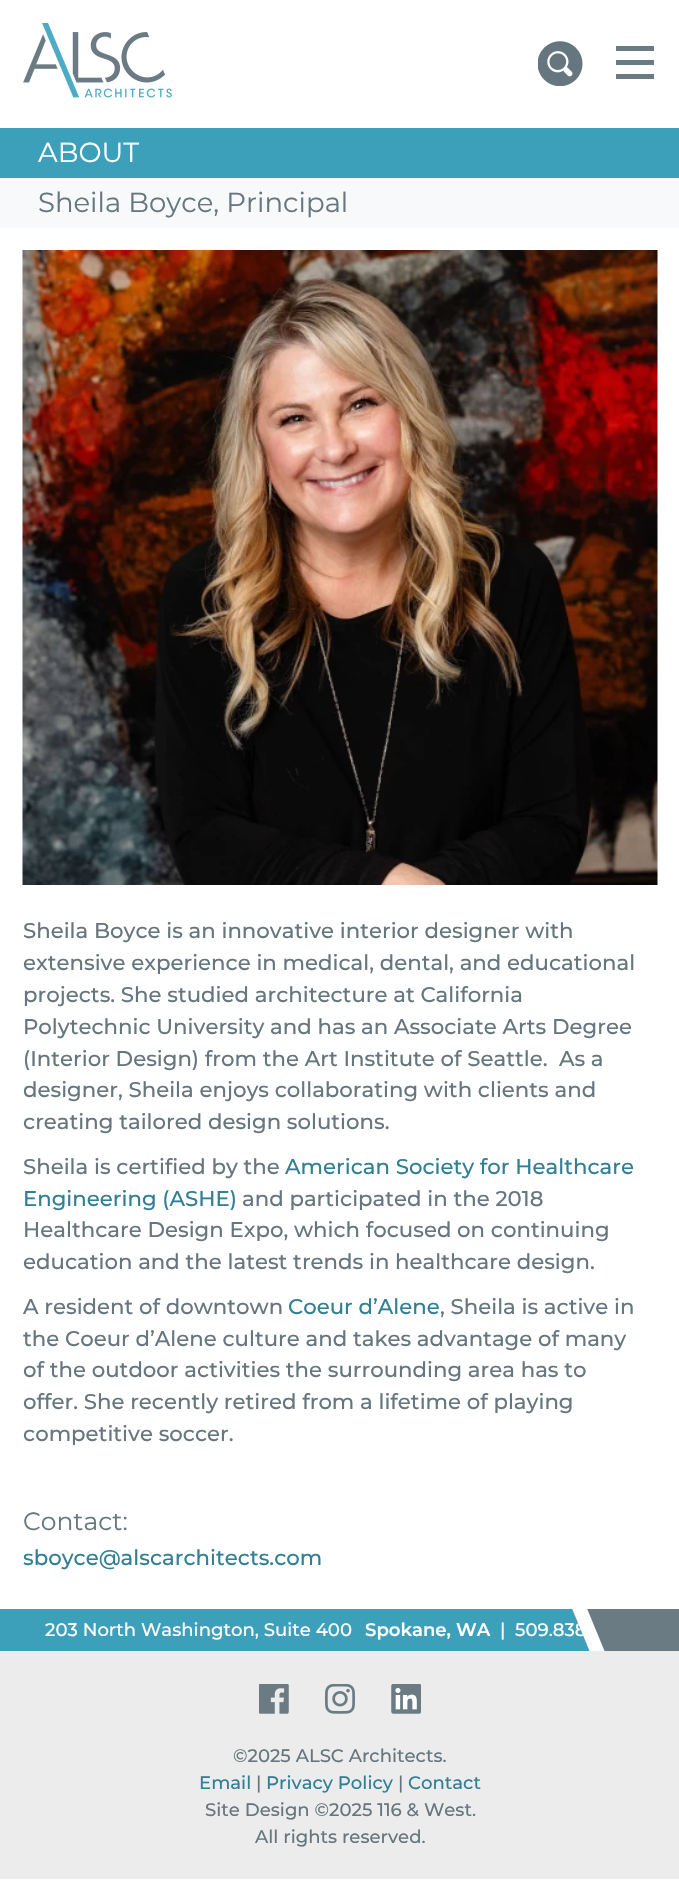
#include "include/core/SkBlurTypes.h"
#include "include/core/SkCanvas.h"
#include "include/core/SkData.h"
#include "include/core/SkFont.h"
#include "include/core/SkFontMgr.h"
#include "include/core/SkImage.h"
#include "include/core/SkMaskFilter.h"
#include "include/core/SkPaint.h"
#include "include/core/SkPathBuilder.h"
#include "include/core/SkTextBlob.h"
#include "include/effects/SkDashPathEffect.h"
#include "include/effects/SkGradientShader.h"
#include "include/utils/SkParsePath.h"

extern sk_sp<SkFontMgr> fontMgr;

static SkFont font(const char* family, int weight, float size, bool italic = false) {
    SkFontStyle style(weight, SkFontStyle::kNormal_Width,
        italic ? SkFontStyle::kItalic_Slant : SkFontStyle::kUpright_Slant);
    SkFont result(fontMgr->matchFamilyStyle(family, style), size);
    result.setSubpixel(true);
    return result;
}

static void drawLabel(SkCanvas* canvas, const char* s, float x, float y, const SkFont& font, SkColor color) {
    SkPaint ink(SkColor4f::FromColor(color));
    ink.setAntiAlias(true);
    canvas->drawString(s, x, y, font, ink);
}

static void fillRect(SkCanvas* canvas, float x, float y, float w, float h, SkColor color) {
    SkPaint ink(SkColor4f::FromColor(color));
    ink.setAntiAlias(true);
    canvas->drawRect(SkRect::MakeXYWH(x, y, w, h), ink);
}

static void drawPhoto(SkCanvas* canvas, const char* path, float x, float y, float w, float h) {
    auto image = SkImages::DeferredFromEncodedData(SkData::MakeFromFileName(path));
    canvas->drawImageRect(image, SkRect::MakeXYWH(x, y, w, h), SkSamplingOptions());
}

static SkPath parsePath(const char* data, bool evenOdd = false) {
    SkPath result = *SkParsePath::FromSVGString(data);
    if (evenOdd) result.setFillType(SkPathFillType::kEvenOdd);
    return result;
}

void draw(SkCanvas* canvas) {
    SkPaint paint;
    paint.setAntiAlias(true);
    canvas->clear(0xFFFFFFFF);
    drawPhoto(canvas, "assets/img1.png", 23, 23, 149, 75);
    drawPhoto(canvas, "assets/img2.png", 538, 41, 45, 45);
    fillRect(canvas, 616, 46, 38, 5, 0xFF6B7B84);
    fillRect(canvas, 616, 60, 38, 5, 0xFF6B7B84);
    fillRect(canvas, 616, 74, 38, 5, 0xFF6B7B84);
    fillRect(canvas, 0, 178, 679, 50, 0xFFF8F9FA);
    fillRect(canvas, 0, 128, 679, 50, 0xFF3DA0BB);
    SkFont font1 = font("Montserrat", 400, 27.5f);
    drawLabel(canvas, "ABOUT", 38, 162, font1, 0xFFFFFFFF);
    drawLabel(canvas, "Sheila Boyce, Principal", 38, 212, font1, 0xFF66767E);
    drawPhoto(canvas, "assets/img3.png", 22, 250, 636, 635);
    SkFont font2 = font("Montserrat", 500, 21.25f);
    drawLabel(canvas, "Sheila Boyce is an innovative interior designer with", 23, 938, font2, 0xFF66767E);
    drawLabel(canvas, "extensive experience in medical, dental, and educational", 23, 970, font2, 0xFF66767E);
    drawLabel(canvas, "projects. She studied architecture at California", 23, 1002, font2, 0xFF66767E);
    drawLabel(canvas, "Polytechnic University and has an Associate Arts Degree", 23, 1034, font2, 0xFF66767E);
    drawLabel(canvas, "(Interior Design) from the Art Institute of Seattle.  As a", 23, 1066, font2, 0xFF66767E);
    drawLabel(canvas, "designer, Sheila enjoys collaborating with clients and", 23, 1097, font2, 0xFF66767E);
    drawLabel(canvas, "creating tailored design solutions.", 23, 1129, font2, 0xFF66767E);
    drawLabel(canvas, "Sheila is certified by the", 23, 1174, font2, 0xFF66767E);
    drawLabel(canvas, "American Society for Healthcare", 285, 1174, font2, 0xFF317F95);
    drawLabel(canvas, "Engineering (ASHE)", 23, 1206, font2, 0xFF317F95);
    drawLabel(canvas, "and participated in the 2018", 242, 1206, font2, 0xFF66767E);
    drawLabel(canvas, "Healthcare Design Expo, which focused on continuing", 23, 1237, font2, 0xFF66767E);
    drawLabel(canvas, "education and the latest trends in healthcare design.", 23, 1269, font2, 0xFF66767E);
    drawLabel(canvas, "A resident of downtown", 23, 1314, font2, 0xFF66767E);
    drawLabel(canvas, "Coeur d’Alene", 288, 1314, font2, 0xFF317F95);
    drawLabel(canvas, ", Sheila is active in", 440, 1314, font2, 0xFF66767E);
    drawLabel(canvas, "the Coeur d’Alene culture and takes advantage of many", 23, 1346, font2, 0xFF66767E);
    drawLabel(canvas, "of the outdoor activities the surrounding area has to", 23, 1377, font2, 0xFF66767E);
    drawLabel(canvas, "offer. She recently retired from a lifetime of playing", 23, 1409, font2, 0xFF66767E);
    drawLabel(canvas, "competitive soccer.", 23, 1441, font2, 0xFF66767E);
    SkFont font3 = font("Montserrat", 400, 25);
    drawLabel(canvas, "Contact:", 23, 1530, font3, 0xFF66767E);
    drawLabel(canvas, "sboyce@alscarchitects.com", 23, 1565, font2, 0xFF317F95);
    fillRect(canvas, 0, 1609, 590, 42, 0xFF3DA0BB);
    SkFont font4 = font("Montserrat", 500, 18.1f);
    drawLabel(canvas, "203 North Washington, Suite 400", 45, 1636, font4, 0xFFFFFFFF);
    SkFont font5 = font("Montserrat", 600, 18.1f);
    drawLabel(canvas, "Spokane, WA", 365, 1636, font5, 0xFFFFFFFF);
    drawLabel(canvas, "|", 500, 1636, font4, 0xFFFFFFFF);
    drawLabel(canvas, "509.838", 515, 1636, font4, 0xFFFFFFFF);
    canvas->save();
    canvas->clipRect(SkRect::MakeXYWH(0, 1609, 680, 42));
    paint.setColor(0xFF6B7B84);
    canvas->drawPath(parsePath("M557 1572H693L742 1691H606Z"), paint);
    paint.setColor(0xFFFFFFFF);
    canvas->drawPath(parsePath("M557 1572H572L621 1691H606Z"), paint);
    canvas->restore();
    fillRect(canvas, 0, 1651, 679, 228, 0xFFECECEC);
    drawPhoto(canvas, "assets/img4.png", 259, 1684, 30, 30);
    drawPhoto(canvas, "assets/img5.png", 325, 1684, 30, 30);
    drawPhoto(canvas, "assets/img6.png", 391, 1684, 30, 30);
    drawLabel(canvas, "©2025 ALSC Architects.", 233, 1762, font4, 0xFF66767E);
    drawLabel(canvas, "Email", 199, 1789, font4, 0xFF317F95);
    drawLabel(canvas, "|", 256, 1789, font4, 0xFF66767E);
    drawLabel(canvas, "Privacy Policy", 266, 1789, font4, 0xFF317F95);
    drawLabel(canvas, "|", 398, 1789, font4, 0xFF66767E);
    drawLabel(canvas, "Contact", 408, 1789, font4, 0xFF317F95);
    drawLabel(canvas, "Site Design ©2025 116 & West.", 205, 1816, font4, 0xFF66767E);
    drawLabel(canvas, "All rights reserved.", 255, 1843, font4, 0xFF66767E);
}
